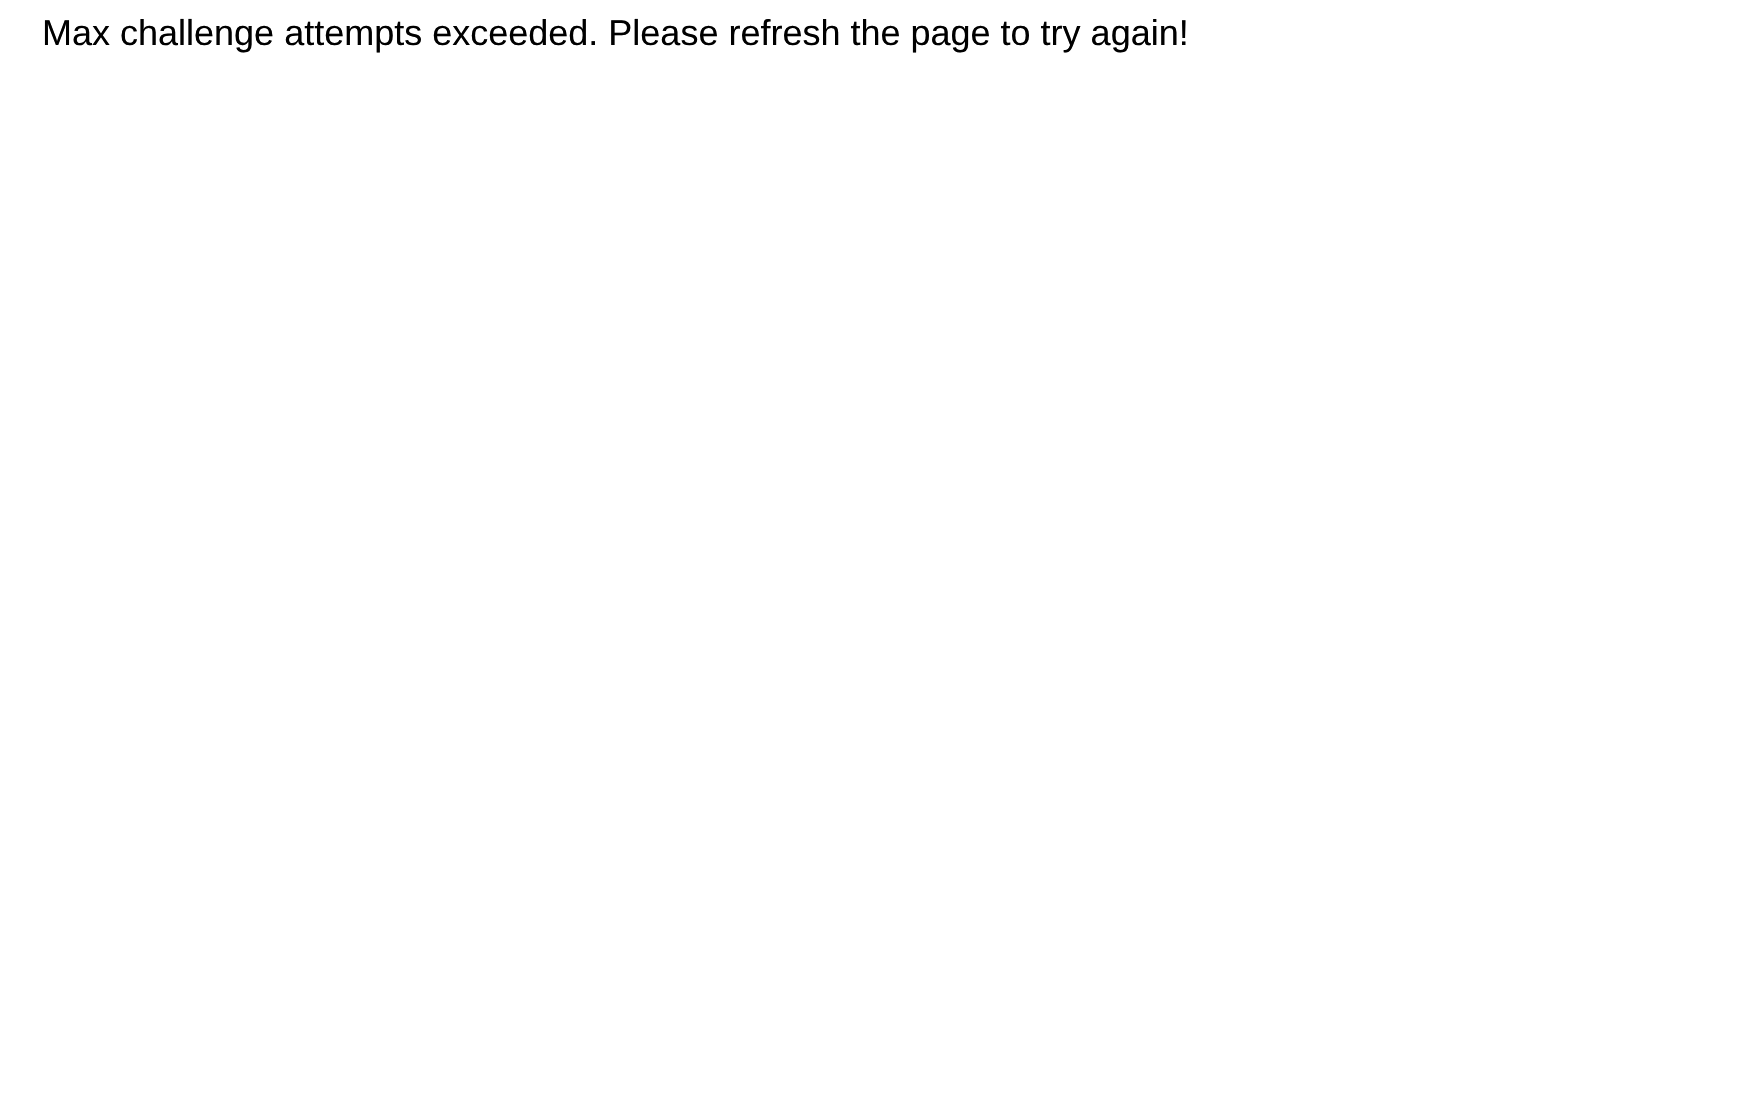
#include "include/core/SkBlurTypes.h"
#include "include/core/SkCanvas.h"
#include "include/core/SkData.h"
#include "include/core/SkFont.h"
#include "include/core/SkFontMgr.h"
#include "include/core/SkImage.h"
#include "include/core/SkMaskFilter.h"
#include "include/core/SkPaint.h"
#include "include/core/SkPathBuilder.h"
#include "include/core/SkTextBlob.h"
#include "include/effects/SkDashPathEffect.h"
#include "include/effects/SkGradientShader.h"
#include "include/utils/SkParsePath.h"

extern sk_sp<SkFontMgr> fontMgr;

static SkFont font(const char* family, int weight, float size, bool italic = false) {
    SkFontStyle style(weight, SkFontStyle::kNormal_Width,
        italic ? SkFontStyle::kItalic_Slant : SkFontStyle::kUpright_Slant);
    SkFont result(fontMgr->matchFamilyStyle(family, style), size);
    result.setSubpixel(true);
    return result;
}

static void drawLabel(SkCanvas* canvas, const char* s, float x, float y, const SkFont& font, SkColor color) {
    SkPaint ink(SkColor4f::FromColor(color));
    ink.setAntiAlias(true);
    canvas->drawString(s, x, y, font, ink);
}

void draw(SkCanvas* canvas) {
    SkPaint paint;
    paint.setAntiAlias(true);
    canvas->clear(0xFFFFFFFF);
    SkFont font1 = font("Liberation Sans", 400, 36);
    drawLabel(canvas, "Max challenge attempts exceeded. Please refresh the page to try again!", 42, 45, font1, 0xFF000000);
}
